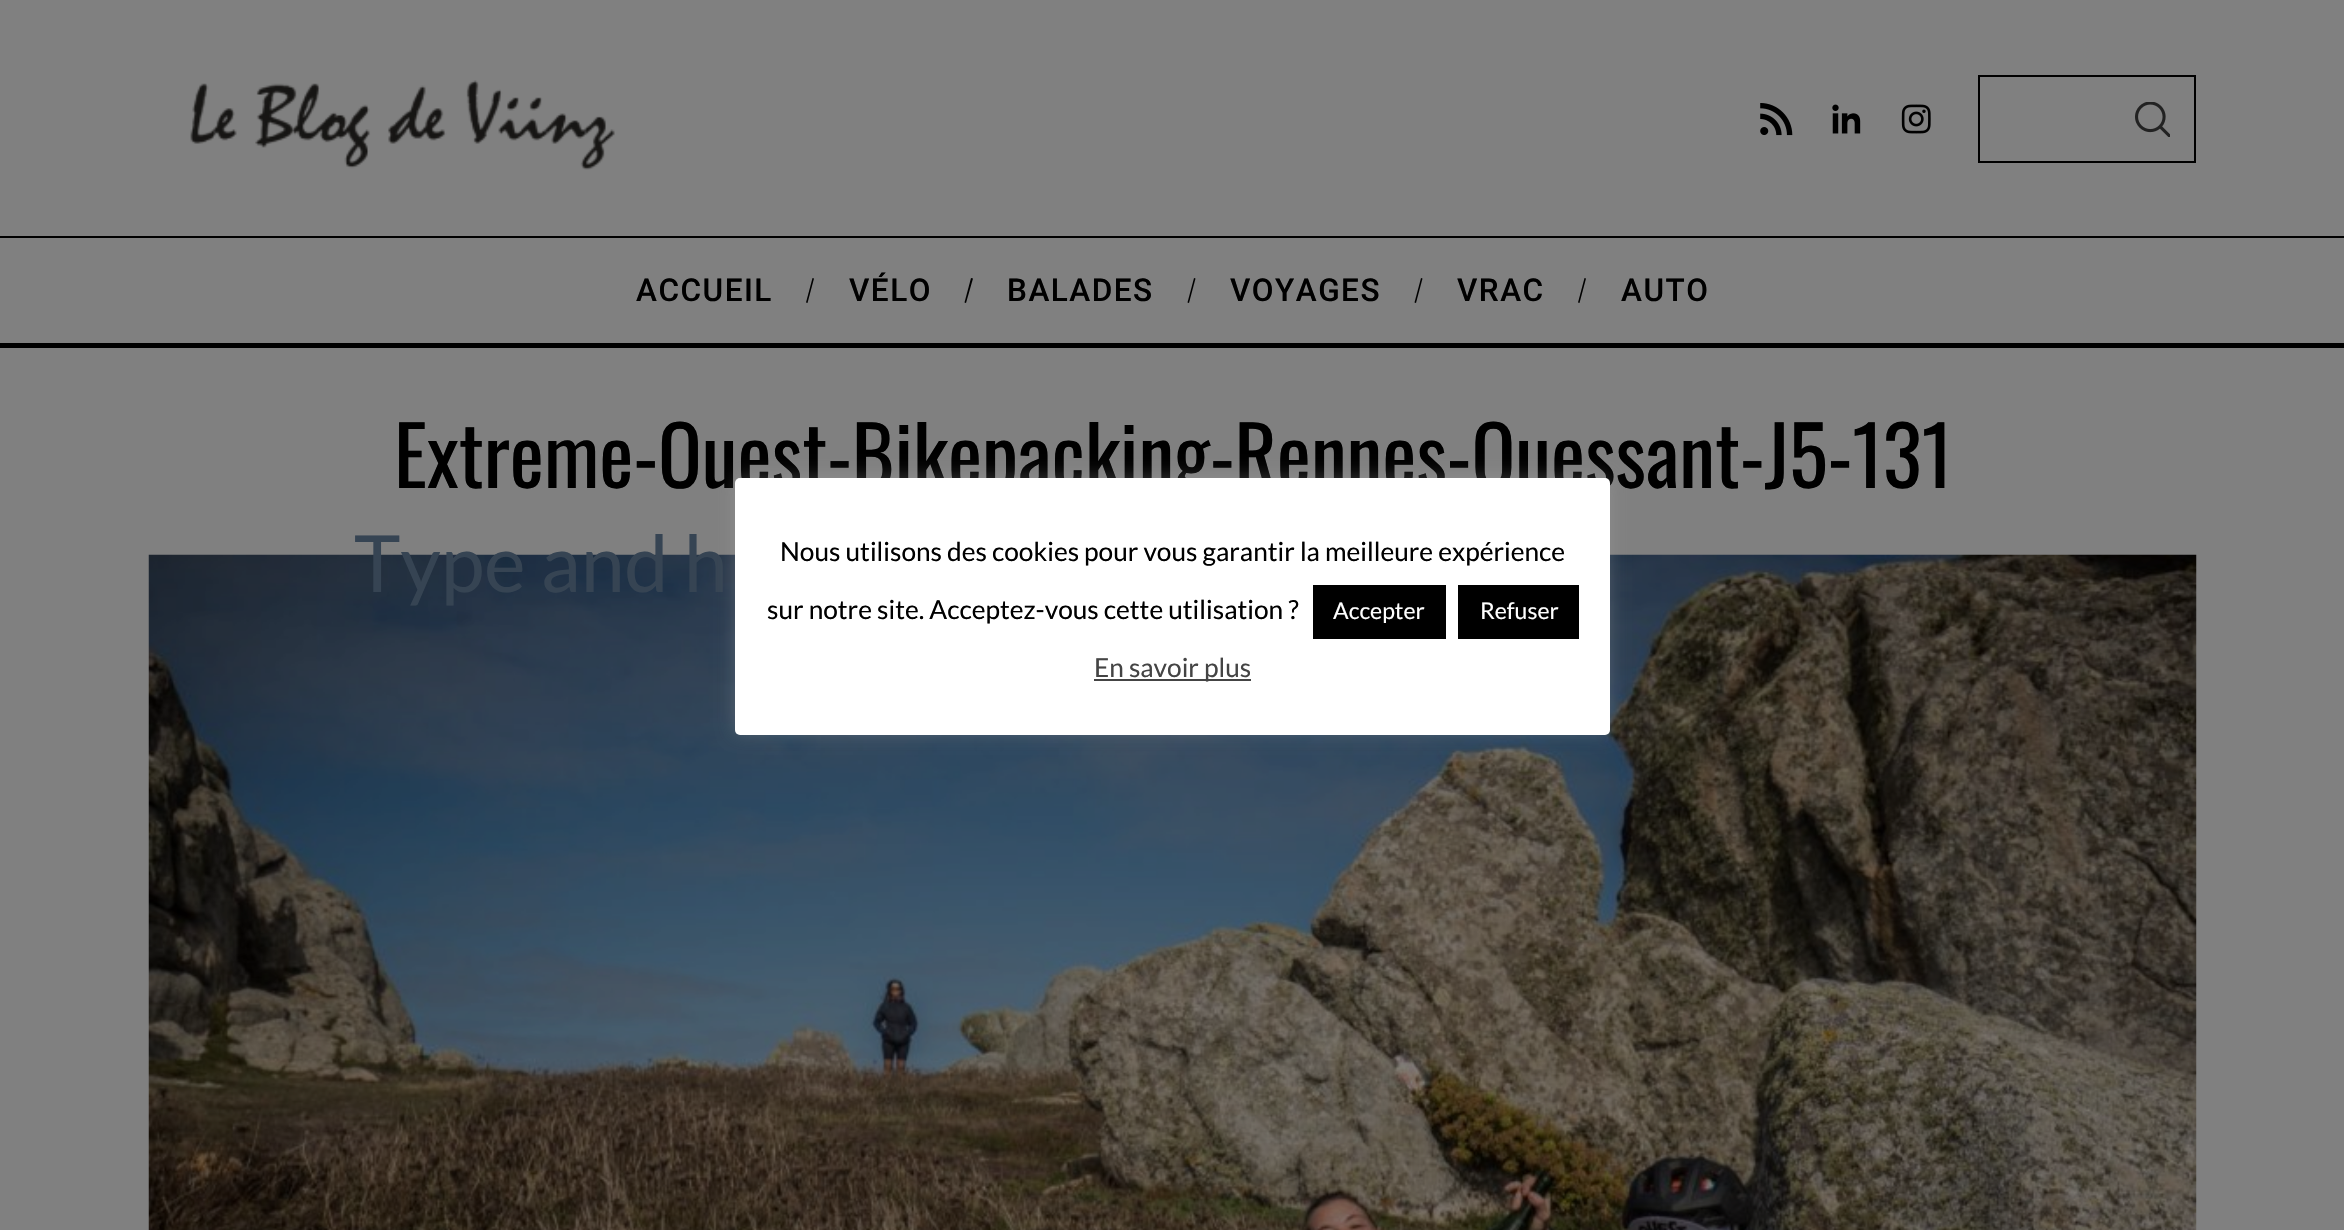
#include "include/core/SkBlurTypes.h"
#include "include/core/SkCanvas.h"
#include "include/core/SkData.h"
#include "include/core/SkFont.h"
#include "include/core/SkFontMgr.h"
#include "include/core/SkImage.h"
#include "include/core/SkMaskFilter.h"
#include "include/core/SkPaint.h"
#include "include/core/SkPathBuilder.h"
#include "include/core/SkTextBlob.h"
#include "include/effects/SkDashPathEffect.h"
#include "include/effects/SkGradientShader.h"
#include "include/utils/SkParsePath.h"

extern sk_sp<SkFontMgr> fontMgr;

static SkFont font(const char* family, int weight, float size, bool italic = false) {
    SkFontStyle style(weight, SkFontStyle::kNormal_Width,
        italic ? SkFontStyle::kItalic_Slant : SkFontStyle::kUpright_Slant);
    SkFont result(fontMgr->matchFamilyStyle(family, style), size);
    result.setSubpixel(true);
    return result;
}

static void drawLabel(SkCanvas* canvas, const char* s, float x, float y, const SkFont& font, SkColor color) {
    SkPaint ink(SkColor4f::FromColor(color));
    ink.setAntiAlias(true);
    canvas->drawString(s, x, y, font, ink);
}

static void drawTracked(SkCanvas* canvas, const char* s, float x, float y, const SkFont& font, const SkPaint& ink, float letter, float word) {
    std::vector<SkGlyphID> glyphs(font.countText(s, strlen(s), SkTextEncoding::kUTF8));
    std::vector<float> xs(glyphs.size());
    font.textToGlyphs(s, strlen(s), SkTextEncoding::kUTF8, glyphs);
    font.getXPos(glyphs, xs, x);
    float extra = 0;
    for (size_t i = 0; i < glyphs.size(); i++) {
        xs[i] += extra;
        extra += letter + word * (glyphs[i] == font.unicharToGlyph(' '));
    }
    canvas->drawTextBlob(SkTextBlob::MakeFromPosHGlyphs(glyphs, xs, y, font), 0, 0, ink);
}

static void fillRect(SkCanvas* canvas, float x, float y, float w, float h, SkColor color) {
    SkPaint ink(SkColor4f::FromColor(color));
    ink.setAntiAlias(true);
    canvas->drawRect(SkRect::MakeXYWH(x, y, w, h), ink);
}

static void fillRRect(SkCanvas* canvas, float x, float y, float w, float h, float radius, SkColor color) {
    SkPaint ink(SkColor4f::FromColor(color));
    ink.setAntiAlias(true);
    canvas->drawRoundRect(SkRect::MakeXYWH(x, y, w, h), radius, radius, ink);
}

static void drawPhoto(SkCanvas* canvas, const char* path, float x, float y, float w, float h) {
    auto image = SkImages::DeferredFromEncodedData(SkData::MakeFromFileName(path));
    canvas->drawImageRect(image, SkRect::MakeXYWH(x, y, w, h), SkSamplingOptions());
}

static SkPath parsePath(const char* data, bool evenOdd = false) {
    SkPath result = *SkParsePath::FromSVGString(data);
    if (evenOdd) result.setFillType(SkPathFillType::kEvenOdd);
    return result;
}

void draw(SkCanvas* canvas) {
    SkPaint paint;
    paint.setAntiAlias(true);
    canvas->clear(0xFF808080);
    drawPhoto(canvas, "assets/img1.png", 190, 80, 425, 90);
    drawPhoto(canvas, "assets/img2.png", 1760, 103, 33, 33);
    drawPhoto(canvas, "assets/img3.png", 1832, 104, 29, 30);
    drawPhoto(canvas, "assets/img4.png", 1901, 104, 30, 30);
    paint.setStroke(true);
    paint.setStrokeWidth(2);
    paint.setColor(0xFF000000);
    canvas->drawRect(SkRect::MakeXYWH(1979, 76, 216, 86), paint);
    drawPhoto(canvas, "assets/img5.png", 2135, 102, 35, 35);
    fillRect(canvas, 0, 236, 2344, 2, 0xFF000000);
    fillRect(canvas, 0, 343, 2344, 5, 0xFF000000);
    SkFont font1 = font("Roboto", 500, 31.5f);
    paint.setStroke(false);
    drawTracked(canvas, "ACCUEIL", 636, 301, font1, paint, 1.5f, 0);
    canvas->drawPath(parsePath("M812.5 278L814 278.5L807.5 303L806 302.5Z"), paint);
    drawTracked(canvas, "VÉLO", 849, 301, font1, paint, 1.5f, 0);
    canvas->drawPath(parsePath("M971 278L973 278.5L966 303L964.5 302.5Z"), paint);
    drawTracked(canvas, "BALADES", 1007, 301, font1, paint, 1.5f, 0);
    canvas->drawPath(parsePath("M1194 278L1195.5 278.5L1189 303L1187.5 302.5Z"), paint);
    drawTracked(canvas, "VOYAGES", 1230, 301, font1, paint, 1.5f, 0);
    canvas->drawPath(parsePath("M1421 278L1422.5 278.5L1416 303L1414.5 302.5Z"), paint);
    drawTracked(canvas, "VRAC", 1457, 301, font1, paint, 1.5f, 0);
    canvas->drawPath(parsePath("M1584.5 278L1586 278.5L1579.5 303L1578 302.5Z"), paint);
    drawTracked(canvas, "AUTO", 1621, 301, font1, paint, 1.5f, 0);
    SkFont font2 = font("Oswald", 400, 81.25f);
    drawLabel(canvas, "Extreme-Ouest-Bikepacking-Rennes-Ouessant-J5-131", 394, 488, font2, 0xFF000000);
    drawPhoto(canvas, "assets/img6.png", 148, 554, 2049, 676);
    SkFont font3 = font("Lato", 400, 78.75f);
    drawLabel(canvas, "Type and h", 354, 592, font3, 0xFF364453);
    paint.setColor(0x4DACABAB);
    paint.setMaskFilter(SkMaskFilter::MakeBlur(kNormal_SkBlurStyle, 9));
    canvas->drawRoundRect(SkRect::MakeXYWH(735, 476, 875, 257), 5, 5, paint);
    paint.setMaskFilter(nullptr);
    fillRRect(canvas, 735, 478, 875, 257, 5, 0xFFFFFFFF);
    SkFont font4 = font("Lato", 400, 26.25f);
    drawLabel(canvas, "Nous utilisons des cookies pour vous garantir la meilleure expérience", 780, 561, font4, 0xFF000000);
    drawLabel(canvas, "sur notre site. Acceptez-vous cette utilisation ?", 767, 619, font4, 0xFF000000);
    fillRect(canvas, 1313, 585, 133, 54, 0xFF000000);
    SkFont font5 = font("Lato", 400, 23);
    drawLabel(canvas, "Accepter", 1333, 619, font5, 0xFFFFFFFF);
    fillRect(canvas, 1458, 585, 121, 54, 0xFF000000);
    drawLabel(canvas, "Refuser", 1480, 619, font5, 0xFFFFFFFF);
    fillRect(canvas, 1094, 679, 157, 2, 0xFF444444);
    drawLabel(canvas, "En savoir plus", 1094, 677, font4, 0xFF444444);
}
